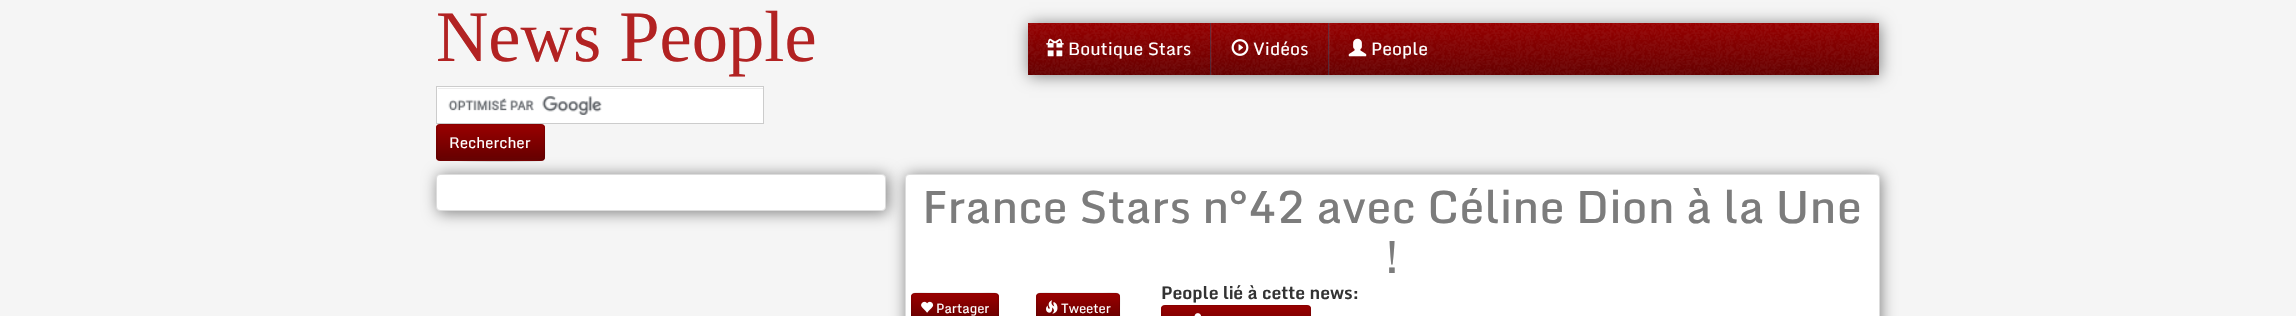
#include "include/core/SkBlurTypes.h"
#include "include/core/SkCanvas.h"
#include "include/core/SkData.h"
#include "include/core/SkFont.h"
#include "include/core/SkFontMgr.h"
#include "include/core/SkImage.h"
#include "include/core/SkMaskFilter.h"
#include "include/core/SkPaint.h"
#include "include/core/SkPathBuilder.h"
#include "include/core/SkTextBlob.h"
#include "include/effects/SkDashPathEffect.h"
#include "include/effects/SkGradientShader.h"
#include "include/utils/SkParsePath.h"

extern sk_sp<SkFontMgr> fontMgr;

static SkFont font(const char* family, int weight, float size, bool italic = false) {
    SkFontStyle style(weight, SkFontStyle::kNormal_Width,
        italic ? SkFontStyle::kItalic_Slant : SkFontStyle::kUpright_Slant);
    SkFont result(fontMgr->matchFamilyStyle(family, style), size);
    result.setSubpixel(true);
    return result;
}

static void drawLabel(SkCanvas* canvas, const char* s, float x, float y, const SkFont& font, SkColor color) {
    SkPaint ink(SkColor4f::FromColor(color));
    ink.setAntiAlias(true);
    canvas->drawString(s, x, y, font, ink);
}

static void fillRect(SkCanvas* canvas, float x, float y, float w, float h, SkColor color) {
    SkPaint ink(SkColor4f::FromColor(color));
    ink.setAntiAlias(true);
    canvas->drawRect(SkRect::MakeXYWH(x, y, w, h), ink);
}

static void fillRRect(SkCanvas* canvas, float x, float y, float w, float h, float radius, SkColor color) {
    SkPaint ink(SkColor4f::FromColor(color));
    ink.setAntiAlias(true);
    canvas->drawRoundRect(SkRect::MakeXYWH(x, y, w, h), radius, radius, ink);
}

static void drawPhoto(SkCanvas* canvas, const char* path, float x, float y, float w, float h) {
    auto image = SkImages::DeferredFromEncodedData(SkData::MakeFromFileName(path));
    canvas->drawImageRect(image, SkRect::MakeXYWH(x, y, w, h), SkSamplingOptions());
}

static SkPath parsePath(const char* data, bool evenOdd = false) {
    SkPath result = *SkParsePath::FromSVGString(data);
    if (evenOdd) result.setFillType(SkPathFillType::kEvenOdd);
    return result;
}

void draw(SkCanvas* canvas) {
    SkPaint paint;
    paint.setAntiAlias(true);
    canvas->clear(0xFFF5F5F5);
    SkFont font1 = font("Liberation Serif", 400, 72.5f);
    drawLabel(canvas, "News People", 436, 61, font1, 0xFFB22222);
    fillRect(canvas, 437, 87, 326, 36, 0xFFFFFFFF);
    drawPhoto(canvas, "assets/img1.png", 448, 96, 154, 19);
    fillRect(canvas, 438, 88, 325, 1, 0xFFECECEC);
    fillRRect(canvas, 436, 124, 109, 37, 4, 0xFF980000);
    canvas->save();
    canvas->clipPath(parsePath("M440 124H541C543 124 545 126 545 128V157C545 159 543 161 541 161H440C438 161 436 159 436 157V128C436 126 438 124 440 124Z"), true);
    {
        const SkColor colors[] = {0xFF980000, 0xFF650000};
        const float stops[] = {0, 1};
        const SkPoint ends[] = {{491, 125}, {491, 160}};
        paint.setShader(SkGradientShader::MakeLinear(ends, colors, stops, 2, SkTileMode::kClamp));
        paint.setAlpha(255);
    }
    canvas->drawRect(SkRect::MakeXYWH(436, 125, 109, 35), paint);
    canvas->restore();
    paint.setStroke(true);
    paint.setStrokeWidth(1.2f);
    paint.setShader(nullptr);
    paint.setColor(0x40000000);
    canvas->drawPath(parsePath("M543.5 159.5L543 160C540.5 161.5 466 160.5 457 160.5H440L438 159.5"), paint);
    paint.setColor(0x1A000000);
    canvas->drawPath(parsePath("M438 159.5C435.5 157.5 437 145.5 437 142.5C437 120.5 433 124.5 457 124.5H541C545.5 124.5 544.5 130 544.5 132.5V147.5C544.5 150 545.5 157.5 543.5 159.5"), paint);
    paint.setStrokeWidth(1);
    paint.setColor(0xFFCCCCCC);
    canvas->drawRect(SkRect::MakeXYWH(436.5f, 86.5f, 327, 37), paint);
    SkFont font2 = font("Monda", 400, 15);
    drawLabel(canvas, "Rechercher", 449, 148, font2, 0xFFFFFFFF);
    paint.setStroke(false);
    {
        const SkColor colors[] = {0xFF980000, 0xFF650000};
        const float stops[] = {0, 1};
        const SkPoint ends[] = {{1453, 22}, {1453, 75}};
        paint.setShader(SkGradientShader::MakeLinear(ends, colors, stops, 2, SkTileMode::kClamp));
        paint.setAlpha(255);
    }
    canvas->drawRect(SkRect::MakeXYWH(1028, 23, 851, 52), paint);
    canvas->save();
    canvas->clipPath(parsePath("M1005 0H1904V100H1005ZM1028 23H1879V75H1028Z", true), true);
    paint.setShader(nullptr);
    paint.setColor(0xFF808080);
    paint.setMaskFilter(SkMaskFilter::MakeBlur(kNormal_SkBlurStyle, 7.5f));
    canvas->drawRect(SkRect::MakeXYWH(1029, 24, 851, 52), paint);
    paint.setMaskFilter(nullptr);
    canvas->restore();
    drawPhoto(canvas, "assets/img2.png", 1028, 23, 851, 52);
    fillRect(canvas, 1210, 23, 1, 52, 0x662A6082);
    drawPhoto(canvas, "assets/img3.png", 1046, 38, 18, 19);
    SkFont font3 = font("Monda", 400, 17.5f);
    drawLabel(canvas, "Boutique Stars", 1068, 55, font3, 0xFFFFFFFF);
    fillRect(canvas, 1328, 23, 1, 52, 0x662A6082);
    fillRect(canvas, 1211, 23, 1, 52, 0x0FFFFFFF);
    drawPhoto(canvas, "assets/img4.png", 1231, 39, 18, 17);
    drawLabel(canvas, "Vidéos", 1253, 55, font3, 0xFFFFFFFF);
    fillRect(canvas, 1329, 23, 1, 52, 0x0FFFFFFF);
    drawPhoto(canvas, "assets/img5.png", 1348, 38, 19, 19);
    drawLabel(canvas, "People", 1371, 55, font3, 0xFFFFFFFF);
    paint.setMaskFilter(SkMaskFilter::MakeBlur(kNormal_SkBlurStyle, 7.5f));
    canvas->drawRoundRect(SkRect::MakeXYWH(438, 175, 450, 38), 4, 4, paint);
    paint.setMaskFilter(nullptr);
    paint.setColor(0xFFFFFFFF);
    canvas->drawRoundRect(SkRect::MakeXYWH(436.5f, 174.5f, 449, 36), 3.5f, 3.5f, paint);
    paint.setStroke(true);
    paint.setColor(0xFFDDDDDD);
    canvas->drawRoundRect(SkRect::MakeXYWH(436.5f, 174.5f, 449, 36), 3.5f, 3.5f, paint);
    paint.setStroke(false);
    paint.setColor(0xFF808080);
    paint.setMaskFilter(SkMaskFilter::MakeBlur(kNormal_SkBlurStyle, 7.5f));
    canvas->drawRoundRect(SkRect::MakeXYWH(906, 175, 975, 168), 4, 4, paint);
    paint.setMaskFilter(nullptr);
    paint.setColor(0xFFFFFFFF);
    canvas->drawRoundRect(SkRect::MakeXYWH(905.5f, 174.5f, 974, 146), 3.5f, 3.5f, paint);
    paint.setStroke(true);
    paint.setColor(0xFFDDDDDD);
    canvas->drawRoundRect(SkRect::MakeXYWH(905.5f, 174.5f, 974, 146), 3.5f, 3.5f, paint);
    SkFont font4 = font("Monda", 500, 45);
    drawLabel(canvas, "France Stars n°42 avec Céline Dion à la Une", 922, 223, font4, 0xFF7C7C7C);
    drawLabel(canvas, "!", 1384, 273, font4, 0xFF7C7C7C);
    SkFont font5 = font("Monda", 700, 17.5f);
    drawLabel(canvas, "People lié à cette news:", 1161, 299, font5, 0xFF333333);
    fillRRect(canvas, 1161, 305, 150, 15, 4, 0xFF980000);
    canvas->save();
    canvas->clipPath(parsePath("M1165 305H1307C1309 305 1311 307 1311 309V331C1311 333 1309 335 1307 335H1165C1163 335 1161 333 1161 331V309C1161 307 1163 305 1165 305Z"), true);
    paint.setStroke(false);
    {
        const SkColor colors[] = {0xFF980000, 0xFF650000};
        const float stops[] = {0, 1};
        const SkPoint ends[] = {{1236, 306}, {1236, 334}};
        paint.setShader(SkGradientShader::MakeLinear(ends, colors, stops, 2, SkTileMode::kClamp));
        paint.setAlpha(255);
    }
    canvas->drawRect(SkRect::MakeXYWH(1161, 306, 150, 10), paint);
    canvas->restore();
    paint.setStroke(true);
    paint.setStrokeWidth(1.2f);
    paint.setShader(nullptr);
    paint.setColor(0x1A000000);
    canvas->drawPath(parsePath("M1163 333.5C1160.5 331.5 1162 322.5 1162 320V312.5C1162 310 1161.5 305.5 1165 305.5H1307.5C1311 305.5 1310.5 310 1310.5 312.5V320C1310.5 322.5 1312 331.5 1309.5 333.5"), paint);
    drawPhoto(canvas, "assets/img6.png", 1194, 313, 7, 3);
    fillRRect(canvas, 911, 293, 88, 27, 4, 0xFF980000);
    canvas->save();
    canvas->clipPath(parsePath("M915 293H995C997 293 999 295 999 297V319C999 321 997 323 995 323H915C913 323 911 321 911 319V297C911 295 913 293 915 293Z"), true);
    paint.setStroke(false);
    {
        const SkColor colors[] = {0xFF980000, 0xFF650000};
        const float stops[] = {0, 1};
        const SkPoint ends[] = {{955, 294}, {955, 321}};
        paint.setShader(SkGradientShader::MakeLinear(ends, colors, stops, 2, SkTileMode::kClamp));
        paint.setAlpha(255);
    }
    canvas->drawRect(SkRect::MakeXYWH(911, 294, 88, 22), paint);
    canvas->restore();
    paint.setStroke(true);
    paint.setShader(nullptr);
    paint.setColor(0x1A000000);
    canvas->drawPath(parsePath("M913 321C910.5 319 912 310 912 307.5C912 290 909.5 293 928.5 293H981.5C1002 293 998 290.5 998 311C998 314 999.5 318.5 997 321"), paint);
    drawPhoto(canvas, "assets/img7.png", 921, 301, 13, 12);
    SkFont font6 = font("Monda", 400, 13);
    drawLabel(canvas, "Partager", 936, 313, font6, 0xFFFFFFFF);
    fillRRect(canvas, 1036, 293, 84, 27, 4, 0xFF980000);
    canvas->save();
    canvas->clipPath(parsePath("M1040 293H1116C1118 293 1120 295 1120 297V319C1120 321 1118 323 1116 323H1040C1038 323 1036 321 1036 319V297C1036 295 1038 293 1040 293Z"), true);
    paint.setStroke(false);
    {
        const SkColor colors[] = {0xFF980000, 0xFF650000};
        const float stops[] = {0, 1};
        const SkPoint ends[] = {{1078, 294}, {1078, 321}};
        paint.setShader(SkGradientShader::MakeLinear(ends, colors, stops, 2, SkTileMode::kClamp));
        paint.setAlpha(255);
    }
    canvas->drawRect(SkRect::MakeXYWH(1036, 294, 84, 22), paint);
    canvas->restore();
    paint.setStroke(true);
    paint.setShader(nullptr);
    paint.setColor(0x1A000000);
    canvas->drawPath(parsePath("M1038 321C1035.5 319 1037 310 1037 307.5C1037 290.5 1034.5 293 1052.5 293H1103.5C1123.5 293 1119.5 291 1119.5 311C1119.5 314 1120.5 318.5 1118.5 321"), paint);
    drawPhoto(canvas, "assets/img8.png", 1046, 300, 12, 14);
    drawLabel(canvas, "Tweeter", 1061, 313, font6, 0xFFFFFFFF);
}
